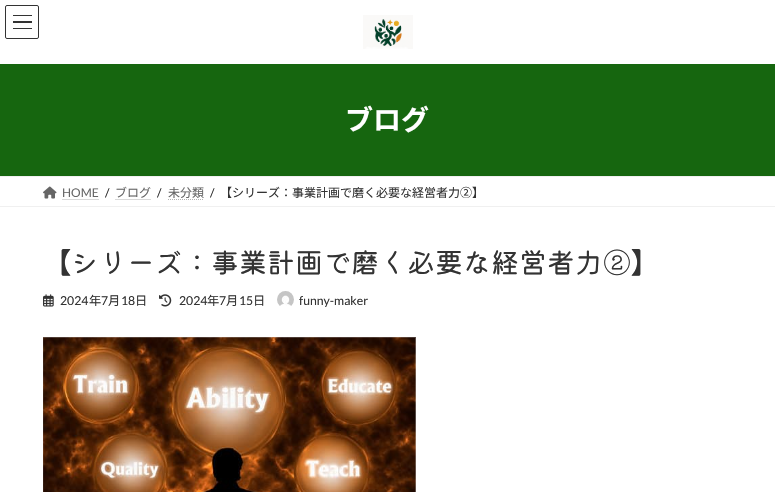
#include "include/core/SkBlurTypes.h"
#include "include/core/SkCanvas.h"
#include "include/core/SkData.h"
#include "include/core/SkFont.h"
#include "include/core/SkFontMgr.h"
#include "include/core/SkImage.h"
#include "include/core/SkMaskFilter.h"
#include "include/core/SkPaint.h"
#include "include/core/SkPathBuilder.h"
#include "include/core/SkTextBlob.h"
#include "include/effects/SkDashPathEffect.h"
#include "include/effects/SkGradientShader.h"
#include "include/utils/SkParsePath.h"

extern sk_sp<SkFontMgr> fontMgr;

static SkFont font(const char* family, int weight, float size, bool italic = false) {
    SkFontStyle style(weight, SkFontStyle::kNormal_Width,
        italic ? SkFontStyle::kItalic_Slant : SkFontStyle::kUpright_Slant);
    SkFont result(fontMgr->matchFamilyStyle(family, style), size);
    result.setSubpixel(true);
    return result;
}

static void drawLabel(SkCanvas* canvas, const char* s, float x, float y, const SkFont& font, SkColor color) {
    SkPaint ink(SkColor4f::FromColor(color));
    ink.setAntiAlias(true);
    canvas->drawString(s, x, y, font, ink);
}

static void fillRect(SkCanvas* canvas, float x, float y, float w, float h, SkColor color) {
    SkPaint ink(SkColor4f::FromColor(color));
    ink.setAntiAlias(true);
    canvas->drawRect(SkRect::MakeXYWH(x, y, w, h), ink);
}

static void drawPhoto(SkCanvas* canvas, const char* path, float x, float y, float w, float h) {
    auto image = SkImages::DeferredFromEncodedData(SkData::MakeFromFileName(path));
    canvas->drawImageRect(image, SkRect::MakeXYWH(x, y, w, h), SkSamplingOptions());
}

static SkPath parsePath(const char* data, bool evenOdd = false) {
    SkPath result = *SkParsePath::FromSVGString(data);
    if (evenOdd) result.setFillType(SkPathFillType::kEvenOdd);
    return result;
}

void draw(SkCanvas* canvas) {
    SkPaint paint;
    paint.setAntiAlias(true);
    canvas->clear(0xFFFFFFFF);
    fillRect(canvas, 13, 15, 19, 1, 0xFF333333);
    fillRect(canvas, 13, 21, 19, 2, 0xFF333333);
    fillRect(canvas, 13, 28, 19, 1, 0xFF333333);
    paint.setStroke(true);
    paint.setStrokeWidth(1);
    paint.setColor(0xFF333333);
    canvas->drawRoundRect(SkRect::MakeXYWH(5.5f, 5.5f, 33, 33), 1.5f, 1.5f, paint);
    drawPhoto(canvas, "assets/img1.png", 363, 15, 50, 34);
    fillRect(canvas, 0, 64, 775, 112, 0xFF16660F);
    SkFont font1 = font("Noto Sans JP", 700, 28);
    drawLabel(canvas, "ブログ", 345, 130, font1, 0xFFFFFFFF);
    fillRect(canvas, 0, 176, 775, 1, 0xFFF0F0F0);
    fillRect(canvas, 0, 206, 775, 1, 0xFFF0F0F0);
    drawPhoto(canvas, "assets/img2.png", 43, 186, 14, 13);
    SkFont font2 = font("Lato", 400, 12);
    drawLabel(canvas, "HOME", 62, 197, font2, 0xFF666666);
    paint.setColor(0xFFB3B3B3);
    paint.setPathEffect(SkDashPathEffect::Make({{1, 1}}, 0));
    canvas->drawPath(parsePath("M62.5 199.5H99"), paint);
    paint.setPathEffect(nullptr);
    drawLabel(canvas, "/", 105, 197, font2, 0xFF333333);
    SkFont font3 = font("Noto Sans JP", 400, 12);
    drawLabel(canvas, "ブログ", 115, 197, font3, 0xFF666666);
    paint.setPathEffect(SkDashPathEffect::Make({{1, 1}}, 0));
    canvas->drawPath(parsePath("M115.5 199.5H151.5"), paint);
    paint.setPathEffect(nullptr);
    drawLabel(canvas, "/", 157, 197, font2, 0xFF333333);
    drawLabel(canvas, "未分類", 168, 197, font3, 0xFF666666);
    paint.setPathEffect(SkDashPathEffect::Make({{1, 1}}, 0));
    canvas->drawPath(parsePath("M168 199.5H204"), paint);
    paint.setPathEffect(nullptr);
    drawLabel(canvas, "/", 210, 197, font2, 0xFF333333);
    drawLabel(canvas, "【シリーズ：事業計画で磨く必要な経営者力②】", 220, 197, font3, 0xFF333333);
    SkFont font4 = font("Kiwi Maru", 400, 28);
    drawLabel(canvas, "【シリーズ：事業計画で磨く必要な経営者力②】", 43, 273, font4, 0xFF333333);
    drawPhoto(canvas, "assets/img3.png", 43, 294, 11, 13);
    SkFont font5 = font("Lato", 400, 12.25f);
    drawLabel(canvas, "2024", 60, 305, font5, 0xFF333333);
    SkFont font6 = font("Noto Sans JP", 400, 12.25f);
    drawLabel(canvas, "年", 89, 305, font6, 0xFF333333);
    drawLabel(canvas, "7", 101, 305, font5, 0xFF333333);
    drawLabel(canvas, "月", 108, 305, font6, 0xFF333333);
    drawLabel(canvas, "18", 121, 305, font5, 0xFF333333);
    drawLabel(canvas, "日", 135, 305, font6, 0xFF333333);
    drawPhoto(canvas, "assets/img4.png", 159, 294, 13, 13);
    drawLabel(canvas, "2024", 179, 305, font5, 0xFF333333);
    drawLabel(canvas, "年", 207, 305, font6, 0xFF333333);
    drawLabel(canvas, "7", 219, 305, font5, 0xFF333333);
    drawLabel(canvas, "月", 226, 305, font6, 0xFF333333);
    drawLabel(canvas, "15", 239, 305, font5, 0xFF333333);
    drawLabel(canvas, "日", 253, 305, font6, 0xFF333333);
    drawPhoto(canvas, "assets/img5.png", 277, 291, 17, 15);
    drawLabel(canvas, "funny-maker", 299, 305, font5, 0xFF333333);
    drawPhoto(canvas, "assets/img6.png", 43, 337, 373, 155);
}
